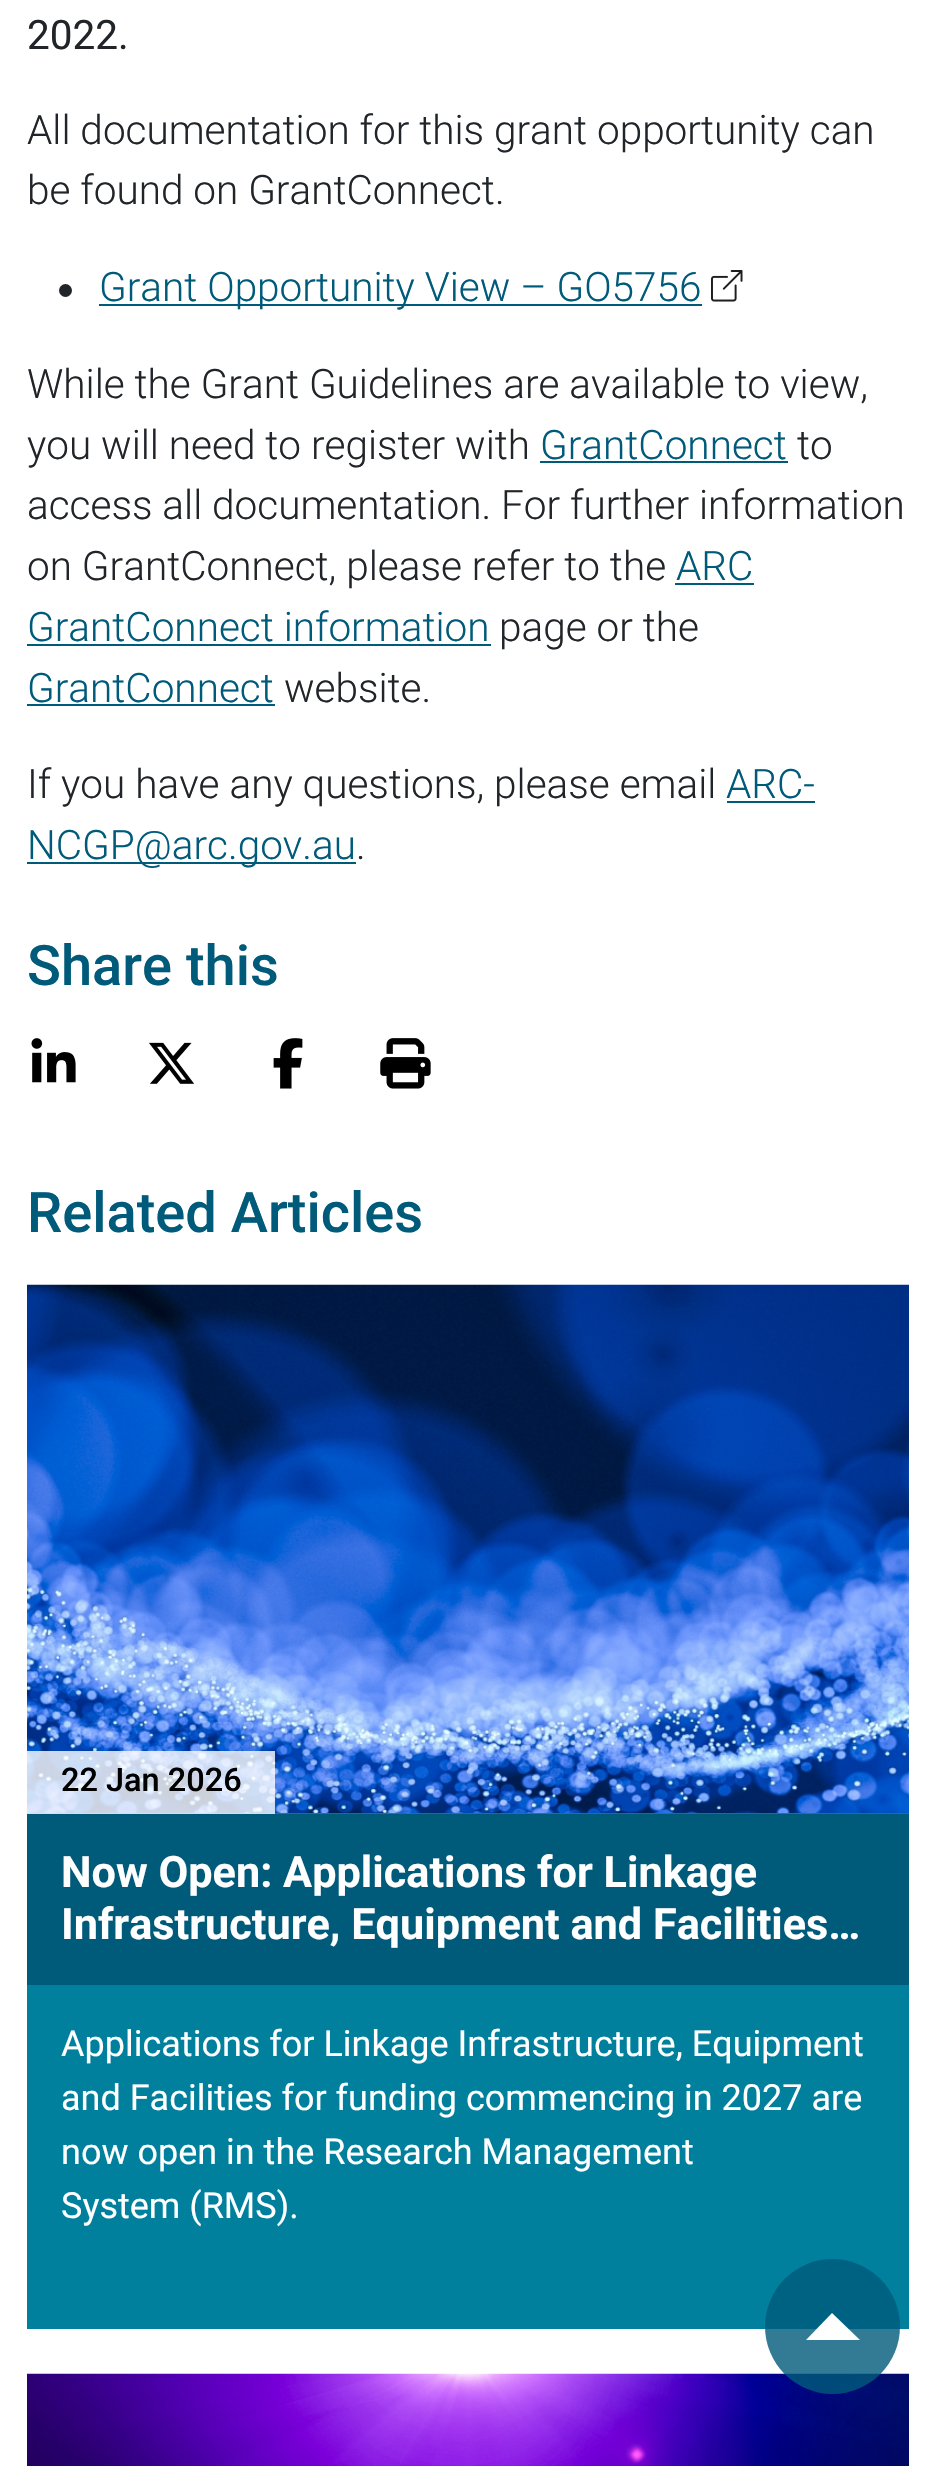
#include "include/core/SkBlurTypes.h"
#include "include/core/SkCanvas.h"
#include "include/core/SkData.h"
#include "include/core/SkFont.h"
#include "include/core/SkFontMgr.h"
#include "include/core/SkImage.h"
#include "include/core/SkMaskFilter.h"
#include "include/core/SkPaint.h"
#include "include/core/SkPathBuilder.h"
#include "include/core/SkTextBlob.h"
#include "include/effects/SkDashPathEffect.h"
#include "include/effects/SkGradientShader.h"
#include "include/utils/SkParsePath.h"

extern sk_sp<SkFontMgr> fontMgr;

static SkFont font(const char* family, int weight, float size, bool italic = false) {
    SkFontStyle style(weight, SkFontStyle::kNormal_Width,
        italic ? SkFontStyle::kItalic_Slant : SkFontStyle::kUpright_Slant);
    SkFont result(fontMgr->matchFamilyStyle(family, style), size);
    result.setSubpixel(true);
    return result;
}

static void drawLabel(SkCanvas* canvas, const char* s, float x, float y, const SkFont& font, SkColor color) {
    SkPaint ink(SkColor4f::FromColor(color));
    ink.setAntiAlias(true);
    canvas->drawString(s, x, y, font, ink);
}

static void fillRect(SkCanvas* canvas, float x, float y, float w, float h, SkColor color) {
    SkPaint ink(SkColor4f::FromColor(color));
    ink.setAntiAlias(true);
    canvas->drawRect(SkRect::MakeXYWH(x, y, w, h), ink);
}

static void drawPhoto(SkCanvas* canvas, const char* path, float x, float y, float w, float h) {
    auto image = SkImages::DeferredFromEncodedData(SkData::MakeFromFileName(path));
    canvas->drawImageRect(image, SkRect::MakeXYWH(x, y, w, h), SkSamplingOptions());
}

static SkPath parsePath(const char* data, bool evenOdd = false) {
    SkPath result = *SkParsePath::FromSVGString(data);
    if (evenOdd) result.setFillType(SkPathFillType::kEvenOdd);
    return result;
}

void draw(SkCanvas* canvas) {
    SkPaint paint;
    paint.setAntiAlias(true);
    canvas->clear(0xFFFFFFFF);
    SkFont font1 = font("Roboto", 400, 40.5f);
    drawLabel(canvas, "2022.", 27, 49, font1, 0xFF212529);
    SkFont font2 = font("Roboto", 300, 40.5f);
    drawLabel(canvas, "All documentation for this grant opportunity can", 27, 144, font2, 0xFF212529);
    drawLabel(canvas, "be found on GrantConnect.", 27, 204, font2, 0xFF212529);
    paint.setColor(0xFF212529);
    canvas->drawCircle(65.5f, 290.5f, 6.5f, paint);
    fillRect(canvas, 99, 304, 603, 2, 0xFF005A7A);
    drawLabel(canvas, "Grant Opportunity View – GO5756", 99, 301, font2, 0xFF005A7A);
    drawPhoto(canvas, "assets/img1.png", 711, 270, 32, 32);
    drawLabel(canvas, "While the Grant Guidelines are available to view,", 27, 398, font2, 0xFF212529);
    drawLabel(canvas, "you will need to register with", 27, 459, font2, 0xFF212529);
    drawLabel(canvas, "GrantConnect", 540, 459, font2, 0xFF005A7A);
    fillRect(canvas, 540, 461, 248, 2, 0xFF005A7A);
    drawLabel(canvas, "to", 797, 459, font2, 0xFF212529);
    drawLabel(canvas, "access all documentation. For further information", 27, 519, font2, 0xFF212529);
    drawLabel(canvas, "on GrantConnect, please refer to the", 27, 580, font2, 0xFF212529);
    drawLabel(canvas, "ARC", 676, 580, font2, 0xFF005A7A);
    fillRect(canvas, 675, 583, 79, 2, 0xFF005A7A);
    drawLabel(canvas, "GrantConnect information", 27, 641, font2, 0xFF005A7A);
    fillRect(canvas, 27, 644, 464, 2, 0xFF005A7A);
    drawLabel(canvas, "page or the", 499, 641, font2, 0xFF212529);
    drawLabel(canvas, "GrantConnect", 27, 702, font2, 0xFF005A7A);
    fillRect(canvas, 27, 704, 248, 2, 0xFF005A7A);
    drawLabel(canvas, "website.", 284, 702, font2, 0xFF212529);
    drawLabel(canvas, "If you have any questions, please email", 27, 798, font2, 0xFF212529);
    drawLabel(canvas, "ARC-", 726, 798, font2, 0xFF005A7A);
    fillRect(canvas, 727, 801, 88, 2, 0xFF005A7A);
    fillRect(canvas, 27, 862, 329, 2, 0xFF005A7A);
    drawLabel(canvas, "NCGP@arc.gov.au", 27, 859, font2, 0xFF005A7A);
    drawLabel(canvas, ".", 356, 859, font2, 0xFF212529);
    SkFont font3 = font("Roboto", 500, 56);
    drawLabel(canvas, "Share this", 27, 985, font3, 0xFF005A7A);
    drawPhoto(canvas, "assets/img2.png", 31, 1038, 45, 45);
    drawPhoto(canvas, "assets/img3.png", 149, 1042, 45, 42);
    drawPhoto(canvas, "assets/img4.png", 273, 1038, 30, 51);
    drawPhoto(canvas, "assets/img5.png", 380, 1038, 51, 51);
    drawLabel(canvas, "Related Articles", 27, 1232, font3, 0xFF005A7A);
    fillRect(canvas, 27, 1813, 882, 516, 0xFF00809D);
    drawPhoto(canvas, "assets/img6.png", 27, 1284, 882, 530);
    fillRect(canvas, 27, 1751, 248, 63, 0xCCFFFFFF);
    SkFont font4 = font("Roboto", 500, 32.5f);
    drawLabel(canvas, "22 Jan 2026", 61, 1791, font4, 0xFF000000);
    fillRect(canvas, 27, 1814, 882, 171, 0xFF005A7A);
    SkFont font5 = font("Roboto", 700, 43.25f);
    drawLabel(canvas, "Now Open: Applications for Linkage", 61, 1887, font5, 0xFFFFFFFF);
    drawLabel(canvas, "Infrastructure, Equipment and Facilities…", 61, 1939, font5, 0xFFFFFFFF);
    SkFont font6 = font("Roboto", 400, 36);
    drawLabel(canvas, "Applications for Linkage Infrastructure, Equipment", 61, 2056, font6, 0xFFFFFFFF);
    drawLabel(canvas, "and Facilities for funding commencing in 2027 are", 61, 2110, font6, 0xFFFFFFFF);
    drawLabel(canvas, "now open in the Research Management", 61, 2164, font6, 0xFFFFFFFF);
    drawLabel(canvas, "System (RMS).", 61, 2218, font6, 0xFFFFFFFF);
    drawPhoto(canvas, "assets/img7.png", 27, 2373, 882, 93);
    paint.setColor(0xCC005A7A);
    canvas->drawCircle(832.5f, 2326.5f, 67.5f, paint);
    paint.setColor(0xFFFFFFFF);
    canvas->drawPath(parsePath("M860 2340H806L832 2313Z"), paint);
}
